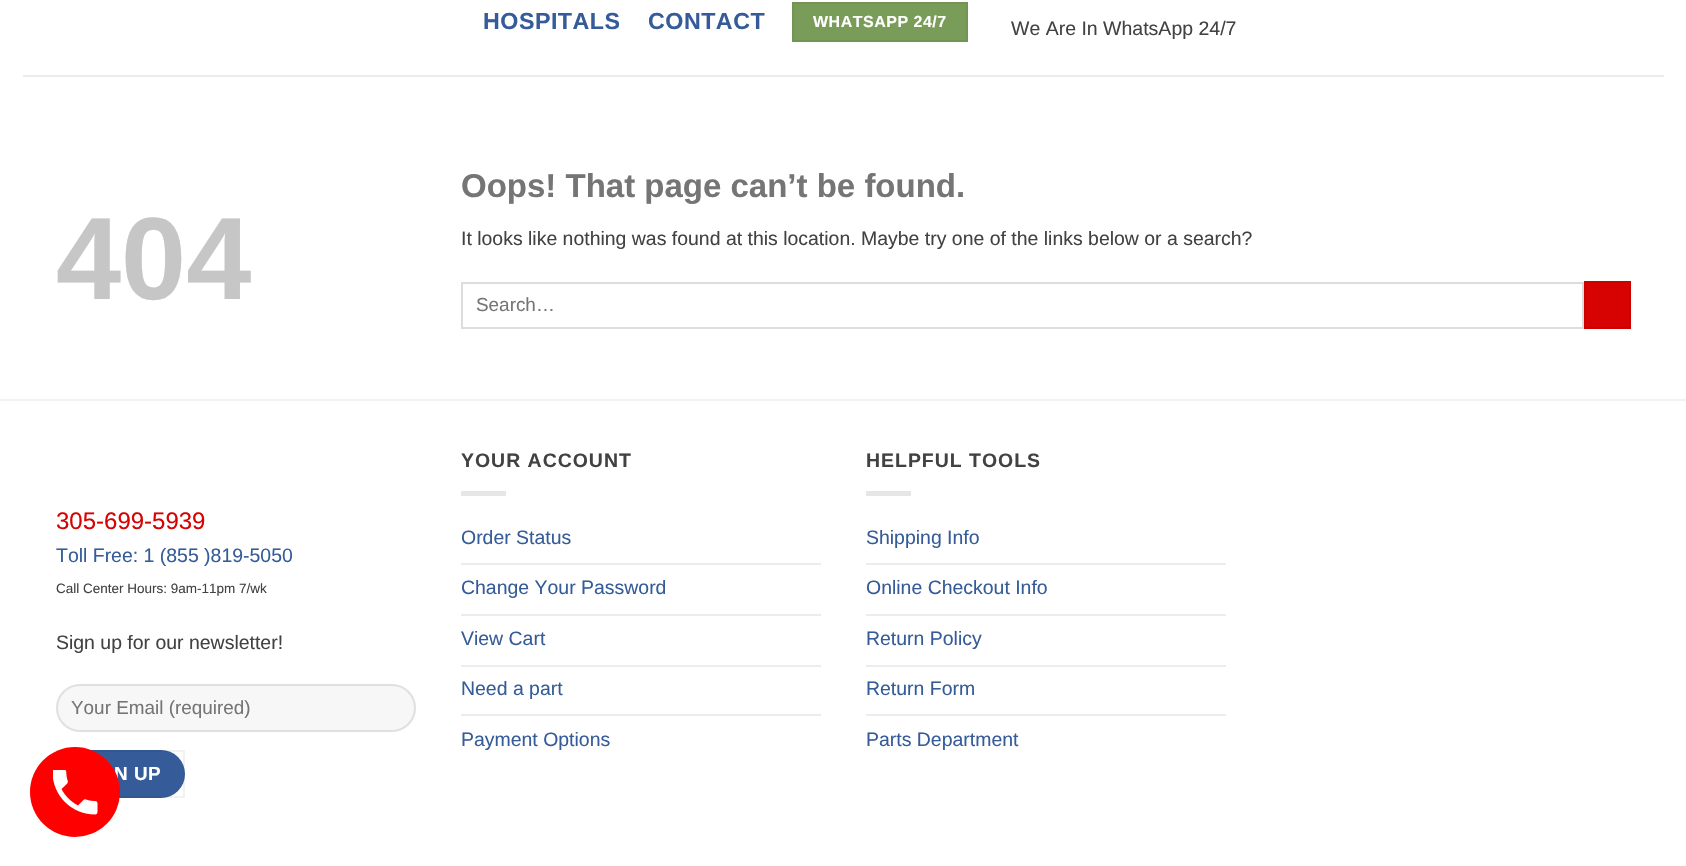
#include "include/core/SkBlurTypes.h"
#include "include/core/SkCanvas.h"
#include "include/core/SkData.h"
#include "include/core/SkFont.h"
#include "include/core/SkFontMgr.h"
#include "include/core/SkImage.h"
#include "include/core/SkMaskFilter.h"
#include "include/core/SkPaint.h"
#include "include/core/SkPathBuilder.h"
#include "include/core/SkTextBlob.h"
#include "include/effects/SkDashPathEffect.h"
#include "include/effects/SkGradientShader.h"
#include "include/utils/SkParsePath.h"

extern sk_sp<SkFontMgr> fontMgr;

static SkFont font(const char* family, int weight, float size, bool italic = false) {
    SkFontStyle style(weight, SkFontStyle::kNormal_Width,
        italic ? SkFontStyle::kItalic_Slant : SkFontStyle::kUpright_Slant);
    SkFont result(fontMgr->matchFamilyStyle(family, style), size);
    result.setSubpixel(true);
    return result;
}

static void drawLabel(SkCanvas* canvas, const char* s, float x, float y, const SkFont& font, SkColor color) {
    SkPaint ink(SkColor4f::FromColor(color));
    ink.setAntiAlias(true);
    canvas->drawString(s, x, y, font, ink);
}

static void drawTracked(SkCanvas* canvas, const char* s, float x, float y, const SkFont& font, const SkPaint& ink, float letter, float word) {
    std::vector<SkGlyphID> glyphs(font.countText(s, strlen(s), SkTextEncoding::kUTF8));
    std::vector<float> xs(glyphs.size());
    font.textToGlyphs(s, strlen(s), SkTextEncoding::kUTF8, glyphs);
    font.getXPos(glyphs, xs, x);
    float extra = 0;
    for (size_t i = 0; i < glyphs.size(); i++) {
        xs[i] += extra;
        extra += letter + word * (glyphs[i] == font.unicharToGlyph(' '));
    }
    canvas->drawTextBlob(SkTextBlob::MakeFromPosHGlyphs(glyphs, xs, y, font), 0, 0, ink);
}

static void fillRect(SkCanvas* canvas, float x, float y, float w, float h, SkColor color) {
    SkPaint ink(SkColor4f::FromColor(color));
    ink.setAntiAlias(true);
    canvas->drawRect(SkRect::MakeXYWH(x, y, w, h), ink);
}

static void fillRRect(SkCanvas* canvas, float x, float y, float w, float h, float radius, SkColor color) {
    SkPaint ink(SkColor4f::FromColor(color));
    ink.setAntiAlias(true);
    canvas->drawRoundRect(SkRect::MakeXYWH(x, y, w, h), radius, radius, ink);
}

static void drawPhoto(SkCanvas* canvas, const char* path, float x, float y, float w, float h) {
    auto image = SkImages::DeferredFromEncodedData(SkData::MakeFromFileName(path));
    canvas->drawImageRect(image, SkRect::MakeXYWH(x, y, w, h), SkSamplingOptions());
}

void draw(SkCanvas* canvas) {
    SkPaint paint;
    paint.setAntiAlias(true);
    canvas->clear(0xFFFFFFFF);
    SkFont font1 = font("Liberation Sans", 700, 23.25f);
    paint.setColor(0xFF355C99);
    drawTracked(canvas, "HOSPITALS", 483, 29, font1, paint, 0.5f, 0);
    drawTracked(canvas, "CONTACT", 648, 29, font1, paint, 0.5f, 0);
    paint.setColor(0xFF7A9C59);
    canvas->drawRect(SkRect::MakeXYWH(793, 3, 174, 38), paint);
    paint.setStroke(true);
    paint.setStrokeWidth(2);
    paint.setColor(0xFF749455);
    canvas->drawRect(SkRect::MakeXYWH(793, 3, 174, 38), paint);
    SkFont font2 = font("Liberation Sans", 700, 16);
    paint.setStroke(false);
    paint.setColor(0xFFFFFFFF);
    drawTracked(canvas, "WHATSAPP 24/7", 813, 27, font2, paint, 0.5f, 0);
    SkFont font3 = font("Liberation Sans", 400, 19.5f);
    drawLabel(canvas, "We Are In WhatsApp 24/7", 1011, 35, font3, 0xFF424242);
    fillRect(canvas, 23, 75, 1641, 2, 0xFFECECEC);
    SkFont font4 = font("Liberation Sans", 700, 117);
    drawLabel(canvas, "404", 56, 299, font4, 0xFFC6C6C6);
    SkFont font5 = font("Liberation Sans", 700, 33);
    drawLabel(canvas, "Oops! That page can’t be found.", 461, 197, font5, 0xFF757575);
    SkFont font6 = font("Liberation Sans", 400, 19.45f);
    drawLabel(canvas, "It looks like nothing was found at this location. Maybe try one of the links below or a search?", 461, 245, font6, 0xFF424242);
    paint.setStroke(true);
    paint.setColor(0xFFDDDDDD);
    canvas->drawRect(SkRect::MakeXYWH(462, 283, 1121, 45), paint);
    SkFont font7 = font("Liberation Sans", 400, 18.9f);
    drawLabel(canvas, "Search…", 476, 311, font7, 0xFF757575);
    paint.setStroke(false);
    paint.setColor(0xFFD70202);
    canvas->drawRect(SkRect::MakeXYWH(1585, 282, 45, 46), paint);
    paint.setStroke(true);
    paint.setColor(0xFFCC0202);
    canvas->drawRect(SkRect::MakeXYWH(1585, 282, 45, 46), paint);
    fillRect(canvas, 0, 399, 1686, 2, 0xFFF2F2F2);
    SkFont font8 = font("Liberation Sans", 400, 24);
    drawLabel(canvas, "305-699-5939", 56, 529, font8, 0xFFD70202);
    drawLabel(canvas, "Toll Free: 1 (855 )819-5050", 56, 562, font6, 0xFF355C99);
    SkFont font9 = font("Liberation Sans", 400, 13.5f);
    drawLabel(canvas, "Call Center Hours: 9am-11pm 7/wk", 56, 593, font9, 0xFF424242);
    drawLabel(canvas, "Sign up for our newsletter!", 56, 649, font6, 0xFF424242);
    fillRRect(canvas, 56, 684, 360, 48, 24, 0xFFF7F7F7);
    paint.setColor(0x17000000);
    canvas->drawRoundRect(SkRect::MakeXYWH(57, 685, 358, 46), 23, 23, paint);
    drawLabel(canvas, "Your Email (required)", 71, 714, font7, 0xFF757575);
    fillRRect(canvas, 56, 750, 129, 48, 24, 0xFF355C99);
    paint.setColor(0x0D000000);
    canvas->drawRect(SkRect::MakeXYWH(57, 751, 127, 46), paint);
    SkFont font10 = font("Liberation Sans", 700, 18.9f);
    paint.setStroke(false);
    paint.setColor(0xFFFFFFFF);
    drawTracked(canvas, "N UP", 114, 780, font10, paint, 0.5f, 0);
    SkFont font11 = font("Liberation Sans", 700, 19.45f);
    paint.setColor(0xFF424242);
    drawTracked(canvas, "YOUR ACCOUNT", 461, 467, font11, paint, 1, 0);
    fillRect(canvas, 461, 491, 45, 5, 0xFFE6E6E6);
    drawLabel(canvas, "Order Status", 461, 544, font6, 0xFF355C99);
    fillRect(canvas, 461, 563, 360, 2, 0xFFECECEC);
    drawLabel(canvas, "Change Your Password", 461, 594, font6, 0xFF355C99);
    fillRect(canvas, 461, 614, 360, 2, 0xFFECECEC);
    drawLabel(canvas, "View Cart", 461, 645, font6, 0xFF355C99);
    fillRect(canvas, 461, 665, 360, 2, 0xFFECECEC);
    drawLabel(canvas, "Need a part", 461, 695, font6, 0xFF355C99);
    fillRect(canvas, 461, 714, 360, 2, 0xFFECECEC);
    drawLabel(canvas, "Payment Options", 461, 746, font6, 0xFF355C99);
    drawTracked(canvas, "HELPFUL TOOLS", 866, 467, font11, paint, 1, 0);
    fillRect(canvas, 866, 491, 45, 5, 0xFFE6E6E6);
    drawLabel(canvas, "Shipping Info", 866, 544, font6, 0xFF355C99);
    fillRect(canvas, 866, 563, 360, 2, 0xFFECECEC);
    drawLabel(canvas, "Online Checkout Info", 866, 594, font6, 0xFF355C99);
    fillRect(canvas, 866, 614, 360, 2, 0xFFECECEC);
    drawLabel(canvas, "Return Policy", 866, 645, font6, 0xFF355C99);
    fillRect(canvas, 866, 665, 360, 2, 0xFFECECEC);
    drawLabel(canvas, "Return Form", 866, 695, font6, 0xFF355C99);
    fillRect(canvas, 866, 714, 360, 2, 0xFFECECEC);
    drawLabel(canvas, "Parts Department", 866, 746, font6, 0xFF355C99);
    paint.setColor(0xFFFF0000);
    canvas->drawCircle(75, 792, 45, paint);
    drawPhoto(canvas, "assets/img1.png", 53, 770, 45, 45);
}
